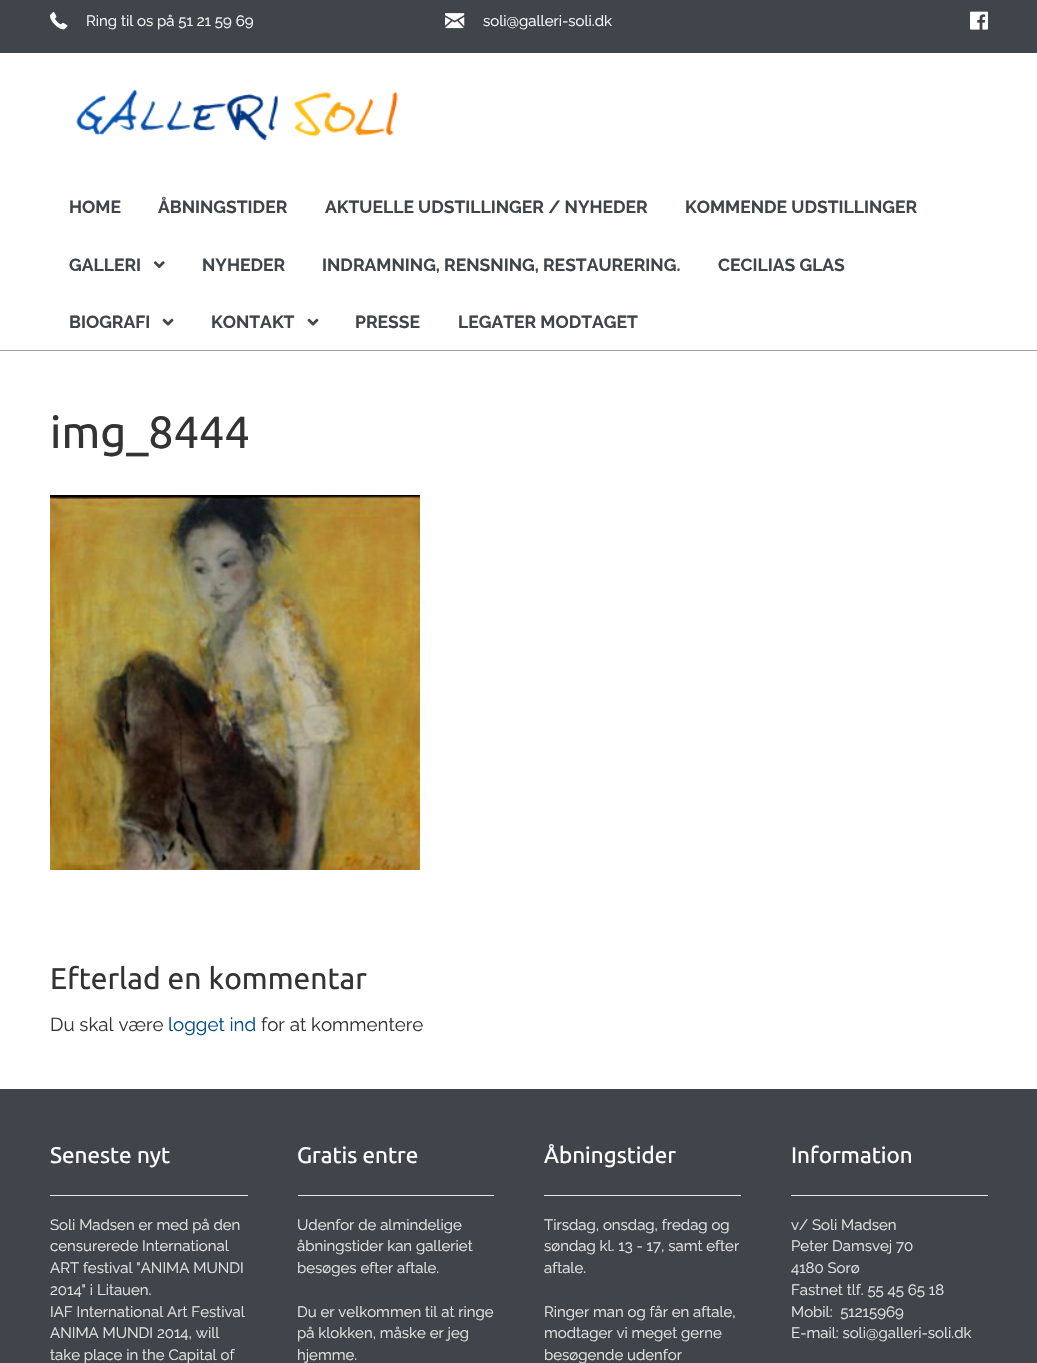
#include "include/core/SkBlurTypes.h"
#include "include/core/SkCanvas.h"
#include "include/core/SkData.h"
#include "include/core/SkFont.h"
#include "include/core/SkFontMgr.h"
#include "include/core/SkImage.h"
#include "include/core/SkMaskFilter.h"
#include "include/core/SkPaint.h"
#include "include/core/SkPathBuilder.h"
#include "include/core/SkTextBlob.h"
#include "include/effects/SkDashPathEffect.h"
#include "include/effects/SkGradientShader.h"
#include "include/utils/SkParsePath.h"

extern sk_sp<SkFontMgr> fontMgr;

static SkFont font(const char* family, int weight, float size, bool italic = false) {
    SkFontStyle style(weight, SkFontStyle::kNormal_Width,
        italic ? SkFontStyle::kItalic_Slant : SkFontStyle::kUpright_Slant);
    SkFont result(fontMgr->matchFamilyStyle(family, style), size);
    result.setSubpixel(true);
    return result;
}

static void drawLabel(SkCanvas* canvas, const char* s, float x, float y, const SkFont& font, SkColor color) {
    SkPaint ink(SkColor4f::FromColor(color));
    ink.setAntiAlias(true);
    canvas->drawString(s, x, y, font, ink);
}

static void fillRect(SkCanvas* canvas, float x, float y, float w, float h, SkColor color) {
    SkPaint ink(SkColor4f::FromColor(color));
    ink.setAntiAlias(true);
    canvas->drawRect(SkRect::MakeXYWH(x, y, w, h), ink);
}

static void drawPhoto(SkCanvas* canvas, const char* path, float x, float y, float w, float h) {
    auto image = SkImages::DeferredFromEncodedData(SkData::MakeFromFileName(path));
    canvas->drawImageRect(image, SkRect::MakeXYWH(x, y, w, h), SkSamplingOptions());
}

void draw(SkCanvas* canvas) {
    SkPaint paint;
    paint.setAntiAlias(true);
    canvas->clear(0xFFFFFFFF);
    fillRect(canvas, 0, 0, 1037, 53, 0xFF3F454A);
    drawPhoto(canvas, "assets/img1.png", 50, 11, 18, 19);
    SkFont font1 = font("Raleway", 400, 15);
    drawLabel(canvas, "Ring til os på 51 21 59 69", 86, 26, font1, 0xFFFFFFFF);
    drawPhoto(canvas, "assets/img2.png", 445, 13, 20, 16);
    drawLabel(canvas, "soli@galleri-soli.dk", 483, 26, font1, 0xFFFFFFFF);
    drawPhoto(canvas, "assets/img3.png", 970, 11, 18, 19);
    fillRect(canvas, 0, 350, 1037, 1, 0xFF9FA2A5);
    drawPhoto(canvas, "assets/img4.png", 76, 89, 322, 52);
    SkFont font2 = font("Raleway", 700, 17.5f);
    drawLabel(canvas, "HOME", 69, 213, font2, 0xFF3F454A);
    drawLabel(canvas, "ÅBNINGSTIDER", 158, 213, font2, 0xFF3F454A);
    drawLabel(canvas, "AKTUELLE UDSTILLINGER / NYHEDER", 325, 213, font2, 0xFF3F454A);
    drawLabel(canvas, "KOMMENDE UDSTILLINGER", 685, 213, font2, 0xFF3F454A);
    drawLabel(canvas, "GALLERI", 69, 271, font2, 0xFF3F454A);
    drawPhoto(canvas, "assets/img5.png", 153, 261, 12, 8);
    drawLabel(canvas, "NYHEDER", 202, 271, font2, 0xFF3F454A);
    drawLabel(canvas, "INDRAMNING, RENSNING, RESTAURERING.", 322, 271, font2, 0xFF3F454A);
    drawLabel(canvas, "CECILIAS GLAS", 718, 271, font2, 0xFF3F454A);
    drawLabel(canvas, "BIOGRAFI", 69, 328, font2, 0xFF3F454A);
    drawPhoto(canvas, "assets/img6.png", 162, 318, 12, 8);
    drawLabel(canvas, "KONTAKT", 211, 328, font2, 0xFF3F454A);
    drawPhoto(canvas, "assets/img6.png", 307, 318, 12, 8);
    drawLabel(canvas, "PRESSE", 355, 328, font2, 0xFF3F454A);
    drawLabel(canvas, "LEGATER MODTAGET", 458, 328, font2, 0xFF3F454A);
    SkFont font3 = font("Ubuntu", 400, 45);
    drawLabel(canvas, "img_8444", 50, 448, font3, 0xFF333333);
    drawPhoto(canvas, "assets/img7.png", 50, 495, 370, 375);
    SkFont font4 = font("Ubuntu", 400, 30);
    drawLabel(canvas, "Efterlad en kommentar", 50, 989, font4, 0xFF333333);
    SkFont font5 = font("Raleway", 400, 18.75f);
    drawLabel(canvas, "Du skal være", 50, 1031, font5, 0xFF333333);
    drawLabel(canvas, "logget ind", 168, 1031, font5, 0xFF004B84);
    drawLabel(canvas, "for at kommentere", 261, 1031, font5, 0xFF333333);
    fillRect(canvas, 0, 1089, 1037, 274, 0xFF3F454A);
    SkFont font6 = font("Ubuntu", 400, 22.5f);
    drawLabel(canvas, "Seneste nyt", 50, 1163, font6, 0xFFFFFFFF);
    fillRect(canvas, 50, 1195, 198, 1, 0xFFE7E7E7);
    drawLabel(canvas, "Soli Madsen er med på den", 50, 1230, font1, 0xFFE5E5E5);
    drawLabel(canvas, "censurerede International", 50, 1251, font1, 0xFFE5E5E5);
    drawLabel(canvas, "ART festival \"ANIMA MUNDI", 50, 1273, font1, 0xFFE5E5E5);
    drawLabel(canvas, "2014\" i Litauen.", 50, 1295, font1, 0xFFE5E5E5);
    drawLabel(canvas, "IAF International Art Festival", 50, 1317, font1, 0xFFE5E5E5);
    drawLabel(canvas, "ANIMA MUNDI 2014, will", 50, 1338, font1, 0xFFE5E5E5);
    drawLabel(canvas, "take place in the Capital of", 50, 1360, font1, 0xFFE5E5E5);
    drawLabel(canvas, "Gratis entre", 297, 1163, font6, 0xFFFFFFFF);
    fillRect(canvas, 298, 1195, 196, 1, 0xFFE7E7E7);
    drawLabel(canvas, "Udenfor de almindelige", 297, 1230, font1, 0xFFE5E5E5);
    drawLabel(canvas, "åbningstider kan galleriet", 297, 1251, font1, 0xFFE5E5E5);
    drawLabel(canvas, "besøges efter aftale.", 297, 1273, font1, 0xFFE5E5E5);
    drawLabel(canvas, "Du er velkommen til at ringe", 297, 1317, font1, 0xFFE5E5E5);
    drawLabel(canvas, "på klokken, måske er jeg", 297, 1338, font1, 0xFFE5E5E5);
    drawLabel(canvas, "hjemme.", 297, 1360, font1, 0xFFE5E5E5);
    drawLabel(canvas, "Åbningstider", 544, 1163, font6, 0xFFFFFFFF);
    fillRect(canvas, 544, 1195, 197, 1, 0xFFE7E7E7);
    drawLabel(canvas, "Tirsdag, onsdag, fredag og", 544, 1230, font1, 0xFFE5E5E5);
    drawLabel(canvas, "søndag kl. 13 - 17, samt efter", 544, 1251, font1, 0xFFE5E5E5);
    drawLabel(canvas, "aftale.", 544, 1273, font1, 0xFFE5E5E5);
    drawLabel(canvas, "Ringer man og får en aftale,", 544, 1317, font1, 0xFFE5E5E5);
    drawLabel(canvas, "modtager vi meget gerne", 544, 1338, font1, 0xFFE5E5E5);
    drawLabel(canvas, "besøgende udenfor", 544, 1360, font1, 0xFFE5E5E5);
    drawLabel(canvas, "Information", 791, 1163, font6, 0xFFFFFFFF);
    fillRect(canvas, 791, 1195, 197, 1, 0xFFE7E7E7);
    drawLabel(canvas, "v/ Soli Madsen", 791, 1230, font1, 0xFFE5E5E5);
    drawLabel(canvas, "Peter Damsvej 70", 791, 1251, font1, 0xFFE5E5E5);
    drawLabel(canvas, "4180 Sorø", 791, 1273, font1, 0xFFE5E5E5);
    drawLabel(canvas, "Fastnet tlf. 55 45 65 18", 791, 1295, font1, 0xFFE5E5E5);
    drawLabel(canvas, "Mobil:  51215969", 791, 1317, font1, 0xFFE5E5E5);
    drawLabel(canvas, "E-mail: soli@galleri-soli.dk", 791, 1338, font1, 0xFFE5E5E5);
}
